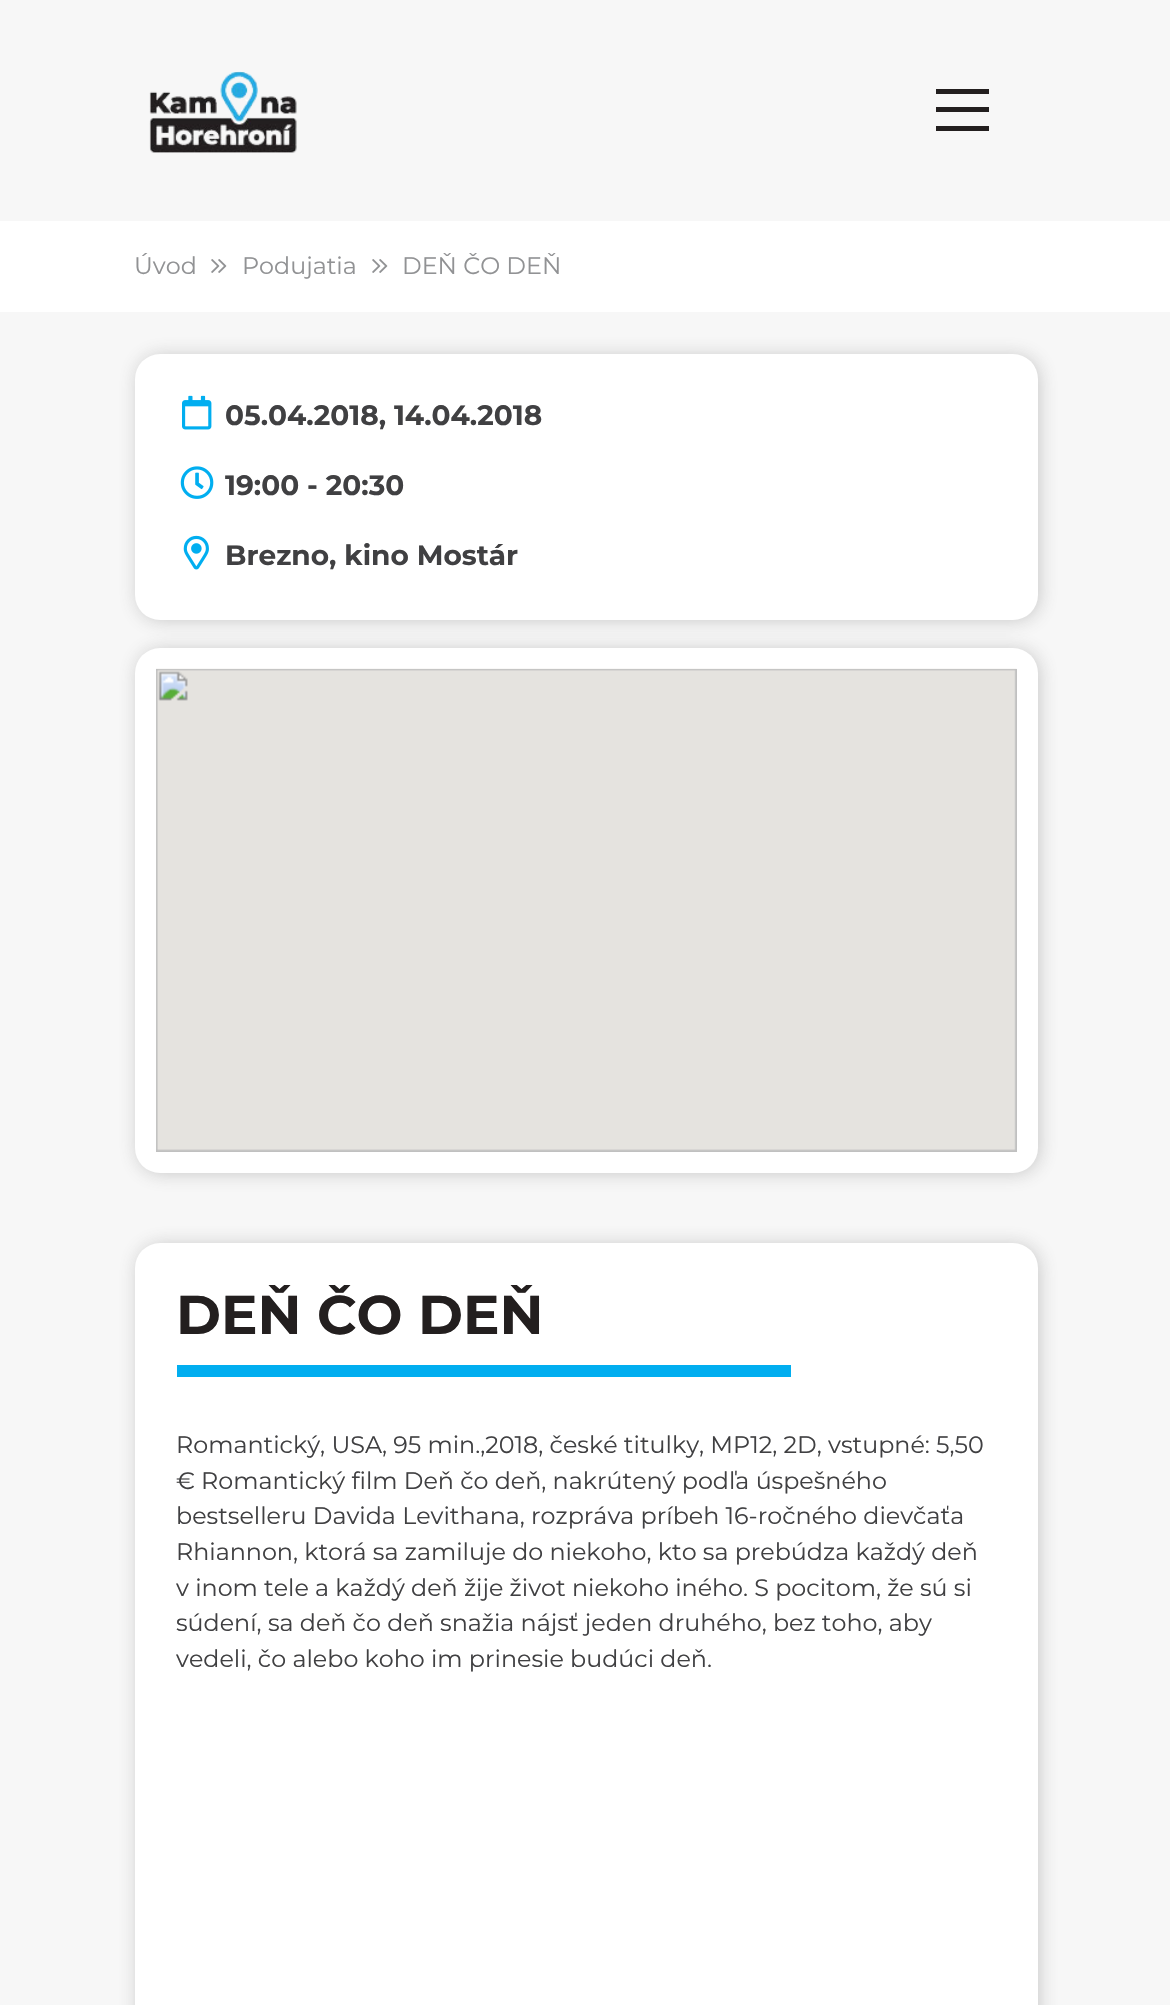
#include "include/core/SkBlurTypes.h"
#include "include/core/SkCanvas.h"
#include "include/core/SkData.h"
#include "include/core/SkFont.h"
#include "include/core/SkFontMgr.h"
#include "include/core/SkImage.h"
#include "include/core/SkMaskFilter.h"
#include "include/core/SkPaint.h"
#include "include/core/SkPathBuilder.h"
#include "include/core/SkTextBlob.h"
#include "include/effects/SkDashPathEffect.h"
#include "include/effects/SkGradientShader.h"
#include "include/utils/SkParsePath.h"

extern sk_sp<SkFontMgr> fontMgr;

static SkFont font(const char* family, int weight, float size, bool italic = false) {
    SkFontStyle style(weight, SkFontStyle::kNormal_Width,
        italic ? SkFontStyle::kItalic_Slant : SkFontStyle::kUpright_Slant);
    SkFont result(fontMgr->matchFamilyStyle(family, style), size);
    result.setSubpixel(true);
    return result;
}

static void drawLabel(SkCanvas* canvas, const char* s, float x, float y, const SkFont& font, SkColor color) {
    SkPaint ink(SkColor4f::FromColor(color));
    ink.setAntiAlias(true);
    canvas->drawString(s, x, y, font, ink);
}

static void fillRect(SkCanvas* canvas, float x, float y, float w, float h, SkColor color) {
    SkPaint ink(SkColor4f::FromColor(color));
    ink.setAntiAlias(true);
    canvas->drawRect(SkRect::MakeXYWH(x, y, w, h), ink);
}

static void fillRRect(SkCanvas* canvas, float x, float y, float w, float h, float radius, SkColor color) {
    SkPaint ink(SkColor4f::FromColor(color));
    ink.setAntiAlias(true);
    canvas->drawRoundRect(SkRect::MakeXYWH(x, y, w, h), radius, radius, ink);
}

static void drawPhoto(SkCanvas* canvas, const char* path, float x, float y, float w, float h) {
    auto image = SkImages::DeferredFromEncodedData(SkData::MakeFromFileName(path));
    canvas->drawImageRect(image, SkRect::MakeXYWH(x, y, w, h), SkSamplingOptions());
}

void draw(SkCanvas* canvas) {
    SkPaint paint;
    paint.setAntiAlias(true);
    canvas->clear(0xFFFFFFFF);
    fillRect(canvas, 0, 0, 1170, 221, 0xFFF7F7F7);
    drawPhoto(canvas, "assets/img1.png", 149, 71, 148, 82);
    fillRect(canvas, 936, 89, 53, 5, 0xFF231F1F);
    fillRect(canvas, 936, 107, 53, 5, 0xFF231F1F);
    fillRect(canvas, 936, 126, 53, 5, 0xFF231F1F);
    SkFont font1 = font("Montserrat", 400, 23.8f);
    drawLabel(canvas, "Úvod", 134, 274, font1, 0xFF919294);
    drawPhoto(canvas, "assets/img2.png", 211, 259, 16, 14);
    drawLabel(canvas, "Podujatia", 242, 274, font1, 0xFF919294);
    drawPhoto(canvas, "assets/img2.png", 372, 259, 16, 14);
    drawLabel(canvas, "DEŇ ČO DEŇ", 402, 274, font1, 0xFF919294);
    fillRect(canvas, 0, 312, 1170, 1693, 0xFFF7F7F7);
    paint.setColor(0x47535252);
    paint.setMaskFilter(SkMaskFilter::MakeBlur(kNormal_SkBlurStyle, 9));
    canvas->drawRoundRect(SkRect::MakeXYWH(137, 355, 903, 266), 25, 25, paint);
    paint.setMaskFilter(nullptr);
    fillRRect(canvas, 135, 354, 903, 266, 25, 0xFFFFFFFF);
    drawPhoto(canvas, "assets/img3.png", 182, 395, 30, 35);
    SkFont font2 = font("Montserrat", 700, 28);
    drawLabel(canvas, "05.04.2018, 14.04.2018", 225, 425, font2, 0xFF404042);
    drawPhoto(canvas, "assets/img4.png", 180, 466, 34, 33);
    drawLabel(canvas, "19:00 - 20:30", 225, 495, font2, 0xFF404042);
    drawPhoto(canvas, "assets/img5.png", 183, 535, 26, 35);
    drawLabel(canvas, "Brezno, kino Mostár", 225, 565, font2, 0xFF404042);
    paint.setMaskFilter(SkMaskFilter::MakeBlur(kNormal_SkBlurStyle, 9));
    canvas->drawRoundRect(SkRect::MakeXYWH(137, 649, 903, 525), 25, 25, paint);
    paint.setMaskFilter(nullptr);
    fillRRect(canvas, 135, 648, 903, 525, 25, 0xFFFFFFFF);
    drawPhoto(canvas, "assets/img6.png", 156, 668, 861, 484);
    paint.setMaskFilter(SkMaskFilter::MakeBlur(kNormal_SkBlurStyle, 9));
    canvas->drawRoundRect(SkRect::MakeXYWH(137, 1244, 903, 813), 25, 25, paint);
    paint.setMaskFilter(nullptr);
    fillRRect(canvas, 135, 1243, 903, 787, 25, 0xFFFFFFFF);
    SkFont font3 = font("Montserrat", 700, 54.5f);
    drawLabel(canvas, "DEŇ ČO DEŇ", 176, 1334, font3, 0xFF231F1F);
    fillRect(canvas, 177, 1365, 614, 12, 0xFF01AEF0);
    drawLabel(canvas, "Romantický, USA, 95 min.,2018, české titulky, MP12, 2D, vstupné: 5,50", 176, 1453, font1, 0xFF404042);
    drawLabel(canvas, "€ Romantický film Deň čo deň, nakrútený podľa úspešného", 176, 1489, font1, 0xFF404042);
    drawLabel(canvas, "bestselleru Davida Levithana, rozpráva príbeh 16-ročného dievčaťa", 176, 1524, font1, 0xFF404042);
    drawLabel(canvas, "Rhiannon, ktorá sa zamiluje do niekoho, kto sa prebúdza každý deň", 176, 1560, font1, 0xFF404042);
    drawLabel(canvas, "v inom tele a každý deň žije život niekoho iného. S pocitom, že sú si", 176, 1596, font1, 0xFF404042);
    drawLabel(canvas, "súdení, sa deň čo deň snažia nájsť jeden druhého, bez toho, aby", 176, 1631, font1, 0xFF404042);
    drawLabel(canvas, "vedeli, čo alebo koho im prinesie budúci deň.", 176, 1667, font1, 0xFF404042);
}
